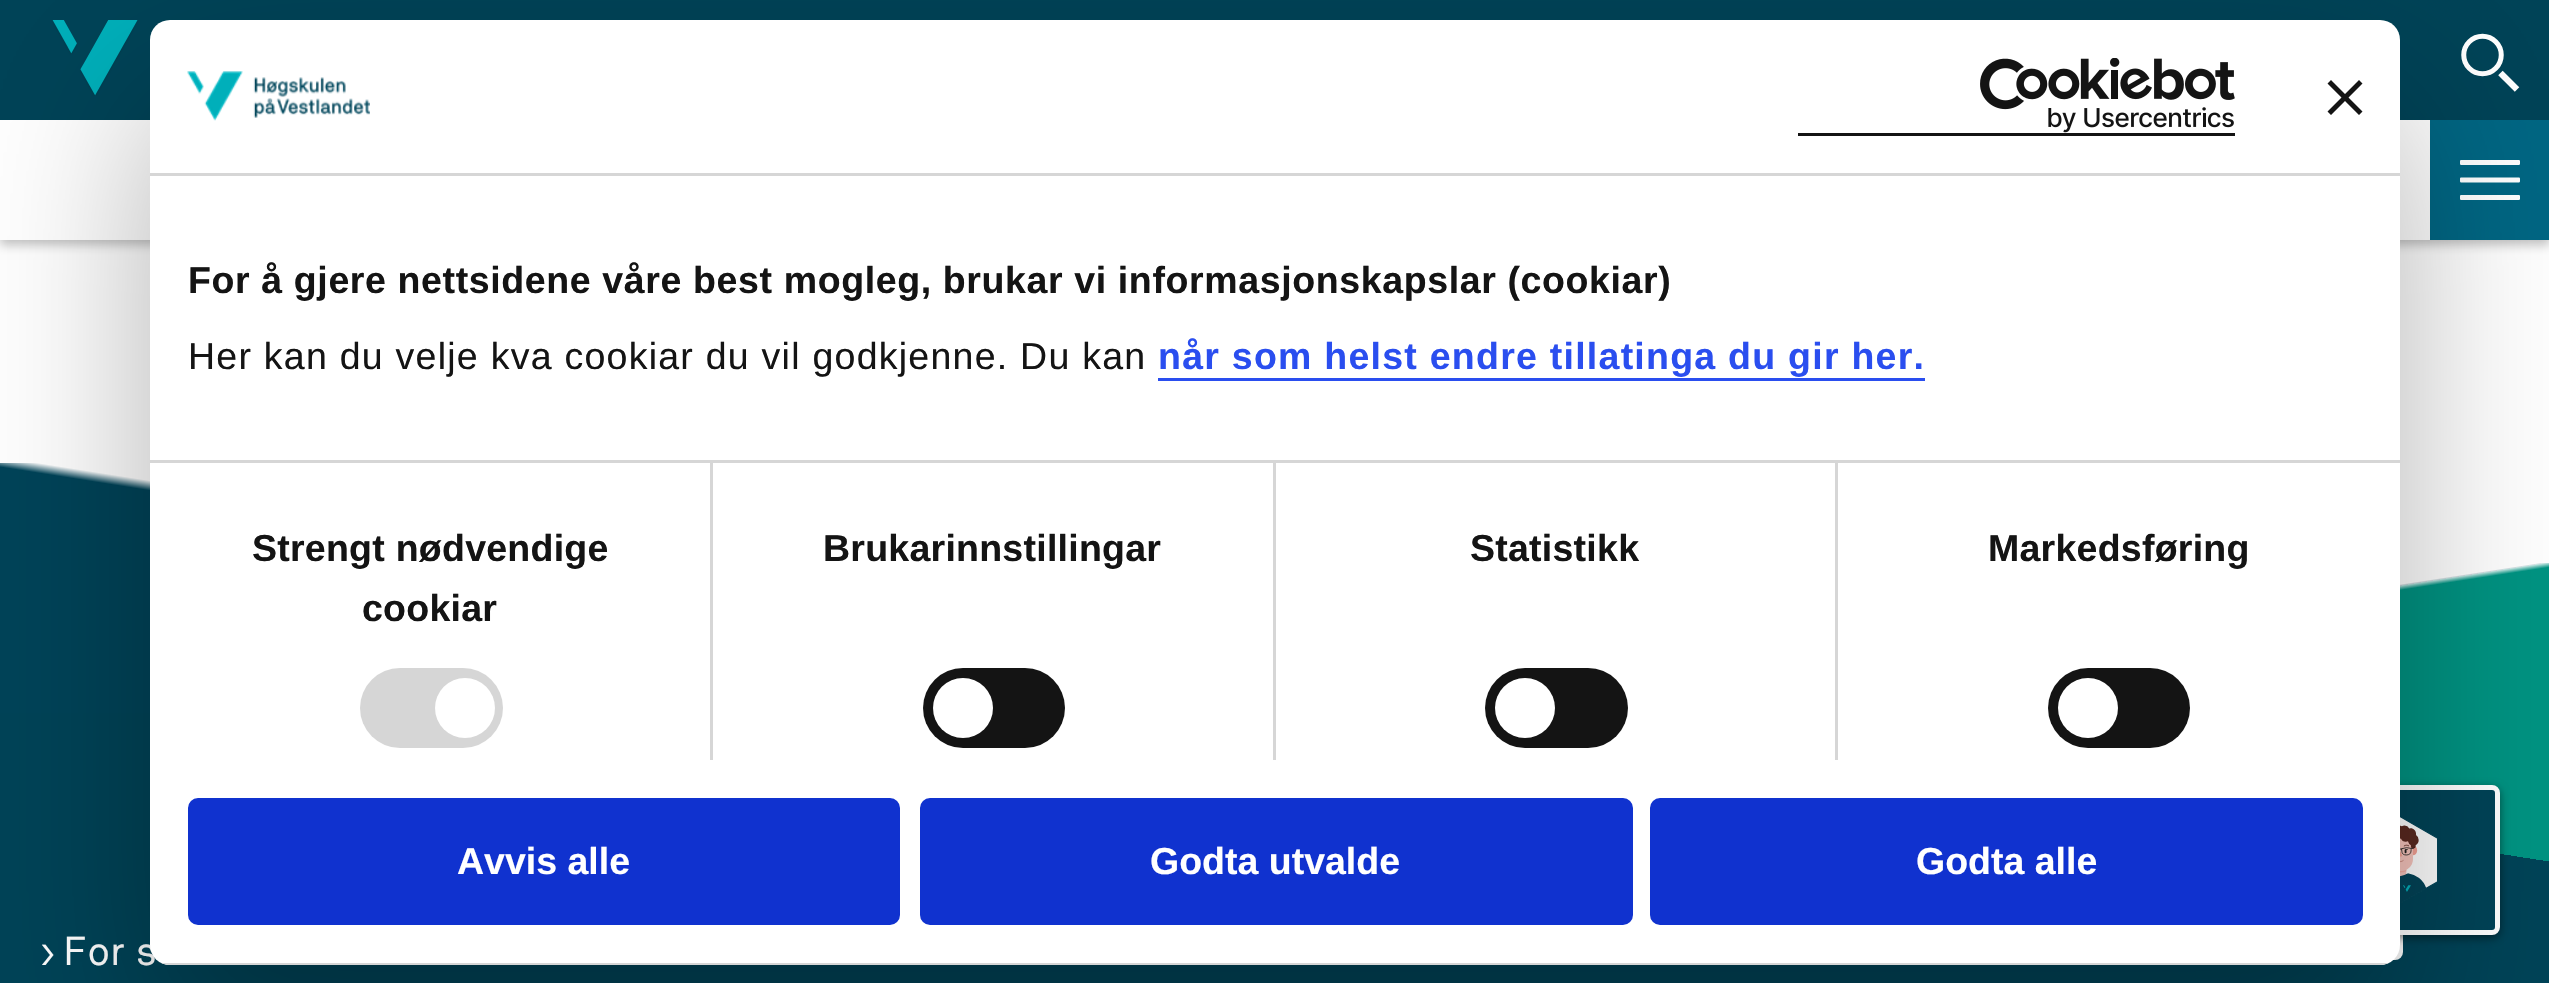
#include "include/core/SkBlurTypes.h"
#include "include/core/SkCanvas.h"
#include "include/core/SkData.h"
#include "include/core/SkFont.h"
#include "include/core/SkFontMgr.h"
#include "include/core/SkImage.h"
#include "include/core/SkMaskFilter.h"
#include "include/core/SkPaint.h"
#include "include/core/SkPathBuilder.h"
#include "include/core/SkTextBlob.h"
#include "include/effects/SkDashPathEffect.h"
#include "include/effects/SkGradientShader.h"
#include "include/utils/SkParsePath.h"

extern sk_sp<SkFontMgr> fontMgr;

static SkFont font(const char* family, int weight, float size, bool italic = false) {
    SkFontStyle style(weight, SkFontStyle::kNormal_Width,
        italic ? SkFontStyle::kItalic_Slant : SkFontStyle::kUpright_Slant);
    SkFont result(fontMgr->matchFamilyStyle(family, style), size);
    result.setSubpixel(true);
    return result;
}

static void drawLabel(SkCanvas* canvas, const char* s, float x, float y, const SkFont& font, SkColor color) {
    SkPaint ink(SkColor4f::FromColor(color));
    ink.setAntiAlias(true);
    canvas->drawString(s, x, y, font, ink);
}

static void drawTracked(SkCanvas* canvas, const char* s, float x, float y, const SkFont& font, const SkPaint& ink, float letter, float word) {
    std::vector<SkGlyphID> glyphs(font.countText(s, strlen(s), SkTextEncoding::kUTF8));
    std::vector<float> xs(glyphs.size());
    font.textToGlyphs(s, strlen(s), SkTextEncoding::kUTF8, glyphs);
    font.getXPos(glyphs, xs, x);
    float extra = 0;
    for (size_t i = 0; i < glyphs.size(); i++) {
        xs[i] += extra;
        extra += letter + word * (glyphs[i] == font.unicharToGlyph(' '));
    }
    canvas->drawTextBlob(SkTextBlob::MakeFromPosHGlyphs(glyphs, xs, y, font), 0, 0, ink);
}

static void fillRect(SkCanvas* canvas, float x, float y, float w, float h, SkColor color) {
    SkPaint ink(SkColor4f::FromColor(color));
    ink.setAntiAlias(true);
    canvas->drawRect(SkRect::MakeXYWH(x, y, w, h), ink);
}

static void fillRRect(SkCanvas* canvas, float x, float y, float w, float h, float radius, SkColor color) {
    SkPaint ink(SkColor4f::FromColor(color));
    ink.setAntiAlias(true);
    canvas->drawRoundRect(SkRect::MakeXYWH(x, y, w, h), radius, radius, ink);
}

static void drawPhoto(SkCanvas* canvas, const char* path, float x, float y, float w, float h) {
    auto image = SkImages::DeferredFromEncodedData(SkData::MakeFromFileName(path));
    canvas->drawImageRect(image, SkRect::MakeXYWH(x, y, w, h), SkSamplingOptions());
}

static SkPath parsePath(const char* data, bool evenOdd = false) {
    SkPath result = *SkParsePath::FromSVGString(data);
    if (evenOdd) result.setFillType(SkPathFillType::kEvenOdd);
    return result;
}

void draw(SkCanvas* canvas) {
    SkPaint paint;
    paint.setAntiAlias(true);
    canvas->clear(0xFFFFFFFF);
    paint.setColor(0x3D000000);
    paint.setMaskFilter(SkMaskFilter::MakeBlur(kNormal_SkBlurStyle, 5));
    canvas->drawRect(SkRect::MakeXYWH(0, 5, 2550, 240), paint);
    paint.setMaskFilter(nullptr);
    fillRect(canvas, 0, 0, 2549, 120, 0xFF004357);
    drawPhoto(canvas, "assets/img1.png", 52, 20, 86, 76);
    drawPhoto(canvas, "assets/img2.png", 2461, 33, 59, 59);
    fillRect(canvas, 2430, 120, 119, 120, 0xFF006683);
    drawPhoto(canvas, "assets/img3.png", 2460, 160, 60, 40);
    fillRect(canvas, 0, 120, 2430, 120, 0xFFFFFFFF);
    fillRect(canvas, 0, 863, 2549, 120, 0xFF004357);
    {
        const SkColor colors[] = {0xFF004358, 0xFFFFFFFF};
        const float stops[] = {0.49f, 0.51f};
        const SkPoint ends[] = {{759, 832}, {836, 343}};
        paint.setShader(SkGradientShader::MakeLinear(ends, colors, stops, 2, SkTileMode::kClamp));
        paint.setAlpha(255);
    }
    canvas->drawRect(SkRect::MakeXYWH(0, 463, 150, 250), paint);
    {
        const SkColor colors[] = {0xFF009382, 0xFF004458};
        const float stops[] = {0.5f, 0.5f};
        const SkPoint ends[] = {{1640, 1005}, {1548, 420}};
        paint.setShader(SkGradientShader::MakeLinear(ends, colors, stops, 2, SkTileMode::kClamp));
        paint.setAlpha(255);
    }
    canvas->drawRect(SkRect::MakeXYWH(2400, 563, 149, 298), paint);
    {
        const SkColor colors[] = {0x00FFFFFF, 0xFFFFFFFF};
        const float stops[] = {0.49f, 0.51f};
        const SkPoint ends[] = {{2095, 784}, {2050, 491}};
        paint.setShader(SkGradientShader::MakeLinear(ends, colors, stops, 2, SkTileMode::kClamp));
        paint.setAlpha(255);
    }
    canvas->drawRect(SkRect::MakeXYWH(2400, 563, 149, 27), paint);
    {
        const SkColor colors[] = {0xFF004357, 0x00004357};
        const float stops[] = {0.5f, 0.5f};
        const SkPoint ends[] = {{1214, 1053}, {1336, 272}};
        paint.setShader(SkGradientShader::MakeLinear(ends, colors, stops, 2, SkTileMode::kClamp));
        paint.setAlpha(255);
    }
    canvas->drawRect(SkRect::MakeXYWH(0, 713, 2549, 150), paint);
    SkFont font1 = font("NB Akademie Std", 400, 40);
    paint.setShader(nullptr);
    paint.setColor(0xFFFFFFFF);
    drawTracked(canvas, "›", 40, 965, font1, paint, 1, 0);
    drawTracked(canvas, "For s", 64, 965, font1, paint, 1, 0);
    fillRRect(canvas, 1695, 863, 708, 97, 8, 0xFFFFFFFF);
    paint.setColor(0x7A000000);
    paint.setMaskFilter(SkMaskFilter::MakeBlur(kNormal_SkBlurStyle, 5));
    canvas->drawRoundRect(SkRect::MakeXYWH(2165, 788, 335, 150), 8, 8, paint);
    paint.setMaskFilter(nullptr);
    paint.setColor(0xFF004357);
    canvas->drawRoundRect(SkRect::MakeXYWH(2167.5f, 787.5f, 330, 145), 5.5f, 5.5f, paint);
    paint.setStroke(true);
    paint.setStrokeWidth(5);
    paint.setColor(0xFFFFFFFF);
    canvas->drawRoundRect(SkRect::MakeXYWH(2167.5f, 787.5f, 330, 145), 5.5f, 5.5f, paint);
    drawPhoto(canvas, "assets/img6.png", 2400, 817, 38, 86);
    paint.setStroke(false);
    paint.setColor(0x4D000000);
    paint.setMaskFilter(SkMaskFilter::MakeBlur(kNormal_SkBlurStyle, 85));
    canvas->drawRoundRect(SkRect::MakeXYWH(150, 100, 2250, 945), 20, 20, paint);
    paint.setMaskFilter(nullptr);
    fillRRect(canvas, 150, 20, 2250, 945, 20, 0xFFFFFFFF);
    fillRect(canvas, 150, 173, 2250, 3, 0xFFD6D6D6);
    drawPhoto(canvas, "assets/img4.png", 187, 71, 183, 50);
    fillRect(canvas, 1798, 133, 437, 3, 0xFF141414);
    drawPhoto(canvas, "assets/img5.png", 1980, 58, 255, 75);
    paint.setColor(0xFF141414);
    canvas->drawPath(parsePath("M2362.5 83.5L2359 80L2345 94L2331 80L2327.5 83.5L2341.5 97.5L2327.5 111.5L2331 115L2345 101L2359 115L2362.5 111.5L2348.5 97.5Z"), paint);
    fillRect(canvas, 150, 460, 2250, 3, 0xFFD6D6D6);
    SkFont font2 = font("Liberation Sans", 700, 37.5f);
    drawTracked(canvas, "For å gjere nettsidene våre best mogleg, brukar vi informasjonskapslar (cookiar)", 188, 293, font2, paint, 0.62f, 0);
    SkFont font3 = font("Liberation Sans", 400, 37.5f);
    drawTracked(canvas, "Her kan du velje kva cookiar du vil godkjenne. Du kan", 188, 369, font3, paint, 1.25f, 0);
    paint.setColor(0xFF2A4EEF);
    drawTracked(canvas, "når som helst endre tillatinga du gir her.", 1158, 369, font2, paint, 1.25f, 0);
    fillRect(canvas, 1158, 378, 767, 3, 0xFF2A4EEF);
    fillRect(canvas, 710, 463, 3, 297, 0xFFD6D6D6);
    paint.setColor(0xFF141414);
    drawTracked(canvas, "Strengt nødvendige", 252, 561, font2, paint, 0.25f, 0);
    drawTracked(canvas, "cookiar", 362, 621, font2, paint, 0.25f, 0);
    fillRRect(canvas, 360, 668, 143, 80, 40, 0xFFD6D6D6);
    paint.setColor(0xFFFFFFFF);
    canvas->drawCircle(465, 708, 30, paint);
    fillRect(canvas, 1273, 463, 3, 297, 0xFFD6D6D6);
    paint.setColor(0xFF141414);
    drawTracked(canvas, "Brukarinnstillingar", 823, 561, font2, paint, 0.25f, 0);
    fillRRect(canvas, 923, 668, 142, 80, 40, 0xFF141414);
    paint.setColor(0xFFFFFFFF);
    canvas->drawCircle(963, 708, 30, paint);
    fillRect(canvas, 1835, 463, 3, 297, 0xFFD6D6D6);
    paint.setColor(0xFF141414);
    drawTracked(canvas, "Statistikk", 1470, 561, font2, paint, 0.25f, 0);
    fillRRect(canvas, 1485, 668, 143, 80, 40, 0xFF141414);
    paint.setColor(0xFFFFFFFF);
    canvas->drawCircle(1525, 708, 30, paint);
    paint.setColor(0xFF141414);
    drawTracked(canvas, "Markedsføring", 1988, 561, font2, paint, 0.25f, 0);
    fillRRect(canvas, 2048, 668, 142, 80, 40, 0xFF141414);
    paint.setColor(0xFFFFFFFF);
    canvas->drawCircle(2088, 708, 30, paint);
    canvas->save();
    canvas->clipPath(parsePath("M170 20H2380C2391 20 2400 29 2400 40V945C2400 956 2391 965 2380 965H170C159 965 150 956 150 945V40C150 29 159 20 170 20Z"), true);
    fillRect(canvas, 161, 963, 2228, 2, 0xFFD6D6D6);
    canvas->restore();
    paint.setColor(0xFF1032CF);
    canvas->drawRoundRect(SkRect::MakeXYWH(190.5f, 800.5f, 707, 122), 7.5f, 7.5f, paint);
    paint.setStroke(true);
    canvas->drawRoundRect(SkRect::MakeXYWH(190.5f, 800.5f, 707, 122), 7.5f, 7.5f, paint);
    drawLabel(canvas, "Avvis alle", 457, 874, font2, 0xFFFFFFFF);
    paint.setStroke(false);
    canvas->drawRoundRect(SkRect::MakeXYWH(922.5f, 800.5f, 708, 122), 7.5f, 7.5f, paint);
    paint.setStroke(true);
    canvas->drawRoundRect(SkRect::MakeXYWH(922.5f, 800.5f, 708, 122), 7.5f, 7.5f, paint);
    drawLabel(canvas, "Godta utvalde", 1150, 874, font2, 0xFFFFFFFF);
    paint.setStroke(false);
    canvas->drawRoundRect(SkRect::MakeXYWH(1652.5f, 800.5f, 708, 122), 7.5f, 7.5f, paint);
    paint.setStroke(true);
    canvas->drawRoundRect(SkRect::MakeXYWH(1652.5f, 800.5f, 708, 122), 7.5f, 7.5f, paint);
    drawLabel(canvas, "Godta alle", 1916, 874, font2, 0xFFFFFFFF);
}
